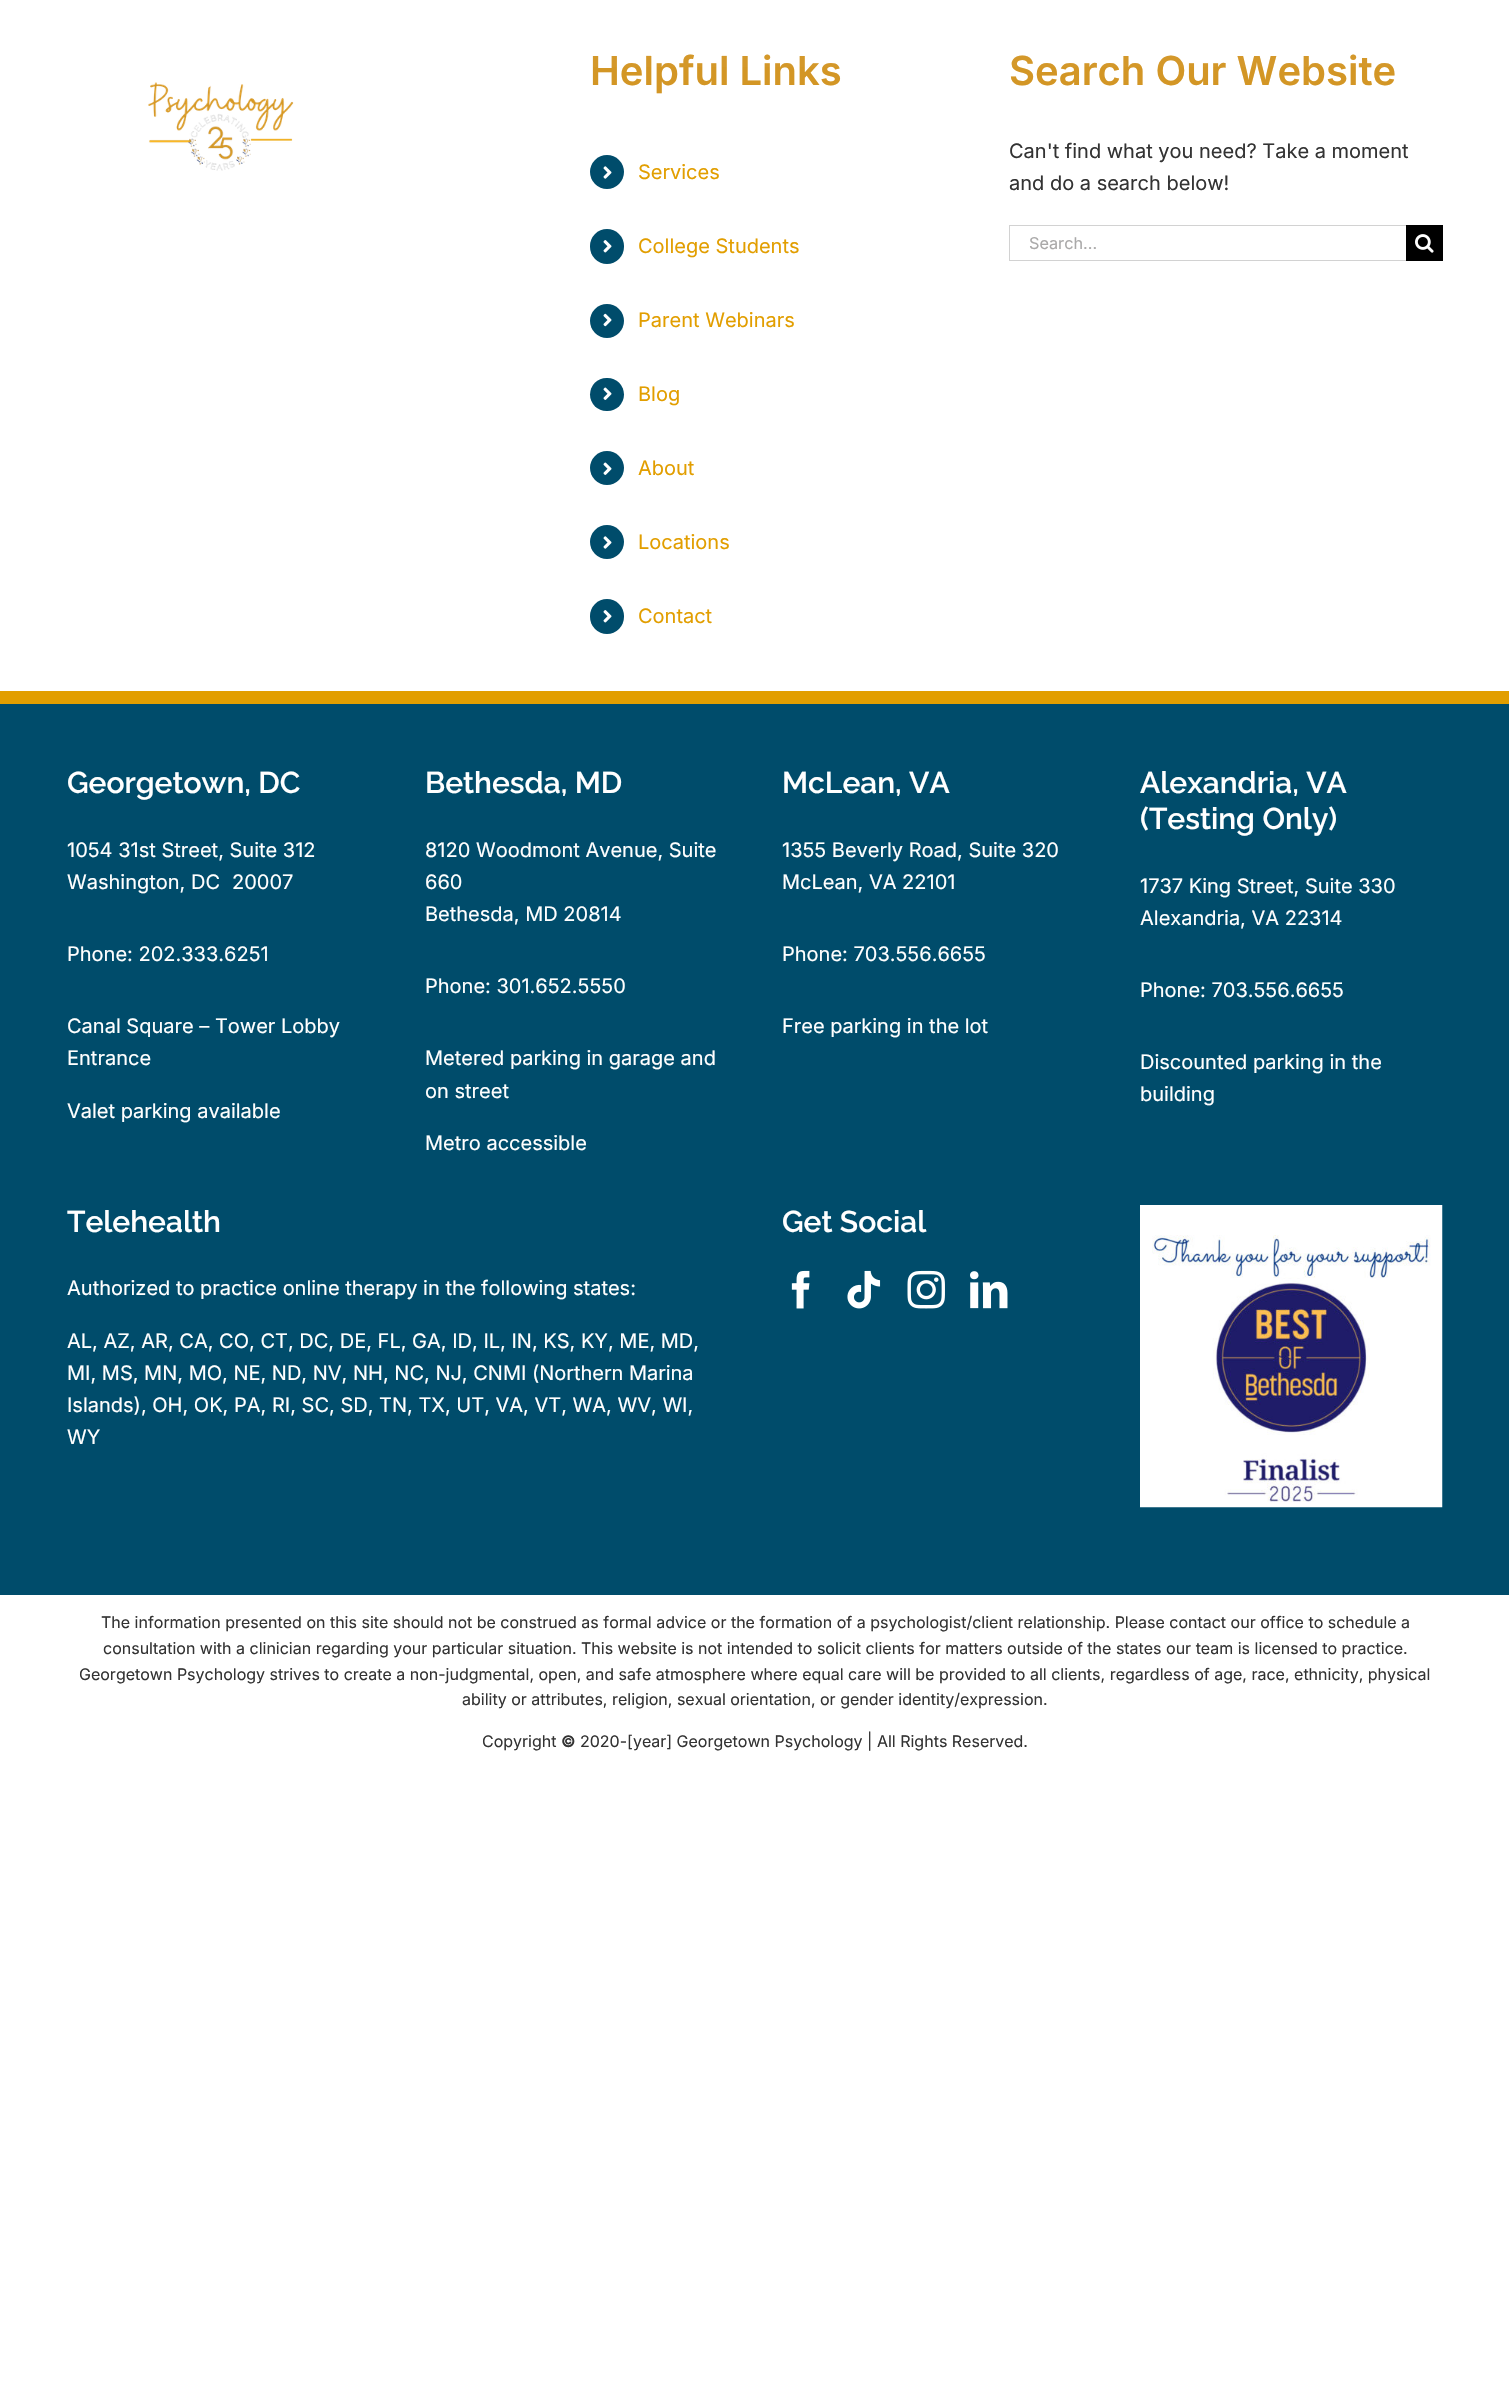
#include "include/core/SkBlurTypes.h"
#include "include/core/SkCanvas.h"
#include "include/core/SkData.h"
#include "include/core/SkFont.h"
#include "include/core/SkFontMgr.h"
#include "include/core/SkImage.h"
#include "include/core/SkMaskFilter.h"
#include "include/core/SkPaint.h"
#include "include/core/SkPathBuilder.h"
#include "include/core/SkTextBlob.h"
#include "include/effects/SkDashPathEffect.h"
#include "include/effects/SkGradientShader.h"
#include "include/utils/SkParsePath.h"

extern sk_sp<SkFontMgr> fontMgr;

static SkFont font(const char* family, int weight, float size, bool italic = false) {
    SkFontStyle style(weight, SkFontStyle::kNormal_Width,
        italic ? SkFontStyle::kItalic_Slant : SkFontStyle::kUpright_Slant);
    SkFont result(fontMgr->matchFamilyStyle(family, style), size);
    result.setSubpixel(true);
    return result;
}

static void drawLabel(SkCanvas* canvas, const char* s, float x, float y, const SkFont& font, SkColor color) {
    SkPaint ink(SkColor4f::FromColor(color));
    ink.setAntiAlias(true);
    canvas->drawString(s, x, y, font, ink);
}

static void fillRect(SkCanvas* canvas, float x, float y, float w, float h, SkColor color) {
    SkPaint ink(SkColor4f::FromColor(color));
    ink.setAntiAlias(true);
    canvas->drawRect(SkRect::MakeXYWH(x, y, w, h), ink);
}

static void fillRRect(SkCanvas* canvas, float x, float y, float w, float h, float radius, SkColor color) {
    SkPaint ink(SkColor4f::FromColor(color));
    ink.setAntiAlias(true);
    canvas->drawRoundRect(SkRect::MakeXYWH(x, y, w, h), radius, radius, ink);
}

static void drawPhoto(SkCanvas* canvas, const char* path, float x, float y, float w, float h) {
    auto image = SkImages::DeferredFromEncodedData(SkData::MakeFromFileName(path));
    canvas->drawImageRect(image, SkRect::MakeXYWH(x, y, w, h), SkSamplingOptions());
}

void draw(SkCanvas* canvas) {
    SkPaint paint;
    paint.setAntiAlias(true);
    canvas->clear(0xFFFFFFFF);
    SkFont font1 = font("Inter", 600, 40);
    drawLabel(canvas, "Helpful Links", 590, 85, font1, 0xFFD39625);
    paint.setColor(0xFF004C6B);
    canvas->drawCircle(607, 172, 17, paint);
    drawPhoto(canvas, "assets/img1.png", 603, 166, 9, 13);
    SkFont font2 = font("Inter", 400, 20);
    drawLabel(canvas, "Services", 638, 179, font2, 0xFFE29E00);
    fillRRect(canvas, 590, 229, 34, 35, 17, 0xFF004C6B);
    drawPhoto(canvas, "assets/img2.png", 603, 240, 9, 13);
    drawLabel(canvas, "College Students", 638, 253, font2, 0xFFE29E00);
    canvas->drawCircle(607, 321, 17, paint);
    drawPhoto(canvas, "assets/img3.png", 603, 313, 9, 14);
    drawLabel(canvas, "Parent Webinars", 638, 327, font2, 0xFFE29E00);
    fillRRect(canvas, 590, 378, 34, 33, 16.5f, 0xFF004C6B);
    drawPhoto(canvas, "assets/img4.png", 603, 387, 9, 13);
    drawLabel(canvas, "Blog", 638, 401, font2, 0xFFE29E00);
    canvas->drawCircle(607, 468, 17, paint);
    drawPhoto(canvas, "assets/img4.png", 603, 462, 9, 13);
    drawLabel(canvas, "About", 638, 475, font2, 0xFFE29E00);
    canvas->drawCircle(607, 542, 17, paint);
    drawPhoto(canvas, "assets/img1.png", 603, 536, 9, 13);
    drawLabel(canvas, "Locations", 638, 549, font2, 0xFFE29E00);
    fillRRect(canvas, 590, 599, 34, 35, 17, 0xFF004C6B);
    drawPhoto(canvas, "assets/img2.png", 603, 610, 9, 13);
    drawLabel(canvas, "Contact", 638, 623, font2, 0xFFE29E00);
    drawLabel(canvas, "Search Our Website", 1009, 85, font1, 0xFFD39625);
    drawLabel(canvas, "Can't find what you need? Take a moment", 1009, 158, font2, 0xFF333333);
    drawLabel(canvas, "and do a search below!", 1009, 190, font2, 0xFF333333);
    fillRect(canvas, 1009, 225, 397, 1, 0xFFD2D2D2);
    fillRect(canvas, 1009, 260, 397, 1, 0xFFD2D2D2);
    fillRect(canvas, 1009, 225, 1, 36, 0xFFD2D2D2);
    SkFont font3 = font("Inter", 400, 16.25f);
    drawLabel(canvas, "Search...", 1029, 249, font3, 0xFFAAA9A9);
    fillRect(canvas, 1406, 225, 37, 36, 0xFF000000);
    drawPhoto(canvas, "assets/img5.png", 1415, 234, 19, 19);
    {
        const SkColor colors[] = {0x08FFFFFF, 0x00FFFFFF};
        const float stops[] = {0, 1};
        const SkPoint ends[] = {{755, 0}, {755, 240}};
        paint.setShader(SkGradientShader::MakeLinear(ends, colors, stops, 2, SkTileMode::kClamp));
        paint.setAlpha(255);
    }
    canvas->drawRect(SkRect::MakeXYWH(593, 55, 799, 12), paint);
    drawPhoto(canvas, "assets/img6.png", 148, 82, 146, 89);
    fillRect(canvas, 0, 704, 1509, 891, 0xFF004C6B);
    fillRect(canvas, 0, 691, 1509, 13, 0xFFE29E00);
    SkFont font4 = font("Raleway", 600, 30);
    drawLabel(canvas, "Georgetown, DC", 67, 793, font4, 0xFFFFFFFF);
    drawLabel(canvas, "1054 31st Street, Suite 312", 67, 857, font2, 0xFFFFFFFF);
    drawLabel(canvas, "Washington, DC", 67, 889, font2, 0xFFFFFFFF);
    drawLabel(canvas, "20007", 232, 889, font2, 0xFFFFFFFF);
    drawLabel(canvas, "Phone: 202.333.6251", 67, 961, font2, 0xFFFFFFFF);
    drawLabel(canvas, "Canal Square – Tower Lobby", 67, 1033, font2, 0xFFFFFFFF);
    drawLabel(canvas, "Entrance", 67, 1065, font2, 0xFFFFFFFF);
    drawLabel(canvas, "Valet parking available", 67, 1118, font2, 0xFFFFFFFF);
    drawLabel(canvas, "Bethesda, MD", 425, 793, font4, 0xFFFFFFFF);
    drawLabel(canvas, "8120 Woodmont Avenue, Suite", 425, 857, font2, 0xFFFFFFFF);
    drawLabel(canvas, "660", 425, 889, font2, 0xFFFFFFFF);
    drawLabel(canvas, "Bethesda, MD 20814", 425, 921, font2, 0xFFFFFFFF);
    drawLabel(canvas, "Phone: 301.652.5550", 425, 993, font2, 0xFFFFFFFF);
    drawLabel(canvas, "Metered parking in garage and", 425, 1065, font2, 0xFFFFFFFF);
    drawLabel(canvas, "on street", 425, 1098, font2, 0xFFFFFFFF);
    drawLabel(canvas, "Metro accessible", 425, 1150, font2, 0xFFFFFFFF);
    drawLabel(canvas, "McLean, VA", 782, 793, font4, 0xFFFFFFFF);
    drawLabel(canvas, "1355 Beverly Road, Suite 320", 782, 857, font2, 0xFFFFFFFF);
    drawLabel(canvas, "McLean, VA 22101", 782, 889, font2, 0xFFFFFFFF);
    drawLabel(canvas, "Phone: 703.556.6655", 782, 961, font2, 0xFFFFFFFF);
    drawLabel(canvas, "Free parking in the lot", 782, 1033, font2, 0xFFFFFFFF);
    drawLabel(canvas, "Alexandria, VA", 1140, 793, font4, 0xFFFFFFFF);
    drawLabel(canvas, "(Testing Only)", 1140, 829, font4, 0xFFFFFFFF);
    drawLabel(canvas, "1737 King Street, Suite 330", 1140, 893, font2, 0xFFFFFFFF);
    drawLabel(canvas, "Alexandria, VA 22314", 1140, 925, font2, 0xFFFFFFFF);
    drawLabel(canvas, "Phone: 703.556.6655", 1140, 997, font2, 0xFFFFFFFF);
    drawLabel(canvas, "Discounted parking in the", 1140, 1069, font2, 0xFFFFFFFF);
    drawLabel(canvas, "building", 1140, 1101, font2, 0xFFFFFFFF);
    drawLabel(canvas, "Telehealth", 67, 1232, font4, 0xFFFFFFFF);
    drawLabel(canvas, "Authorized to practice online therapy in the following states:", 67, 1295, font2, 0xFFFFFFFF);
    drawLabel(canvas, "AL, AZ, AR, CA, CO, CT, DC, DE, FL, GA, ID, IL, IN, KS, KY, ME, MD,", 67, 1348, font2, 0xFFFFFFFF);
    drawLabel(canvas, "MI, MS, MN, MO, NE, ND, NV, NH, NC, NJ, CNMI (Northern Marina", 67, 1380, font2, 0xFFFFFFFF);
    drawLabel(canvas, "Islands), OH, OK, PA, RI, SC, SD, TN, TX, UT, VA, VT, WA, WV, WI,", 67, 1412, font2, 0xFFFFFFFF);
    drawLabel(canvas, "WY", 67, 1444, font2, 0xFFFFFFFF);
    drawLabel(canvas, "Get Social", 782, 1232, font4, 0xFFFFFFFF);
    drawPhoto(canvas, "assets/img7.png", 791, 1270, 19, 39);
    drawPhoto(canvas, "assets/img8.png", 847, 1270, 34, 39);
    drawPhoto(canvas, "assets/img9.png", 907, 1270, 38, 39);
    drawPhoto(canvas, "assets/img10.png", 970, 1271, 38, 38);
    drawPhoto(canvas, "assets/img11.png", 1140, 1205, 303, 303);
    SkFont font5 = font("Inter", 400, 16);
    drawLabel(canvas, "The information presented on this site should not be construed as formal advice or the formation of a psychologist/client relationship. Please contact our office to schedule a", 101, 1628, font5, 0xFF333333);
    drawLabel(canvas, "consultation with a clinician regarding your particular situation. This website is not intended to solicit clients for matters outside of the states our team is licensed to practice.", 103, 1654, font5, 0xFF333333);
    drawLabel(canvas, "Georgetown Psychology strives to create a non-judgmental, open, and safe atmosphere where equal care will be provided to all clients, regardless of age, race, ethnicity, physical", 79, 1680, font5, 0xFF333333);
    drawLabel(canvas, "ability or attributes, religion, sexual orientation, or gender identity/expression.", 462, 1705, font5, 0xFF333333);
    drawLabel(canvas, "Copyright", 482, 1747, font5, 0xFF333333);
    SkFont font6 = font("Inter", 700, 16);
    drawLabel(canvas, "©", 561, 1747, font6, 0xFF333333);
    drawLabel(canvas, "2020-[year] Georgetown Psychology | All Rights Reserved.", 580, 1747, font5, 0xFF333333);
}
